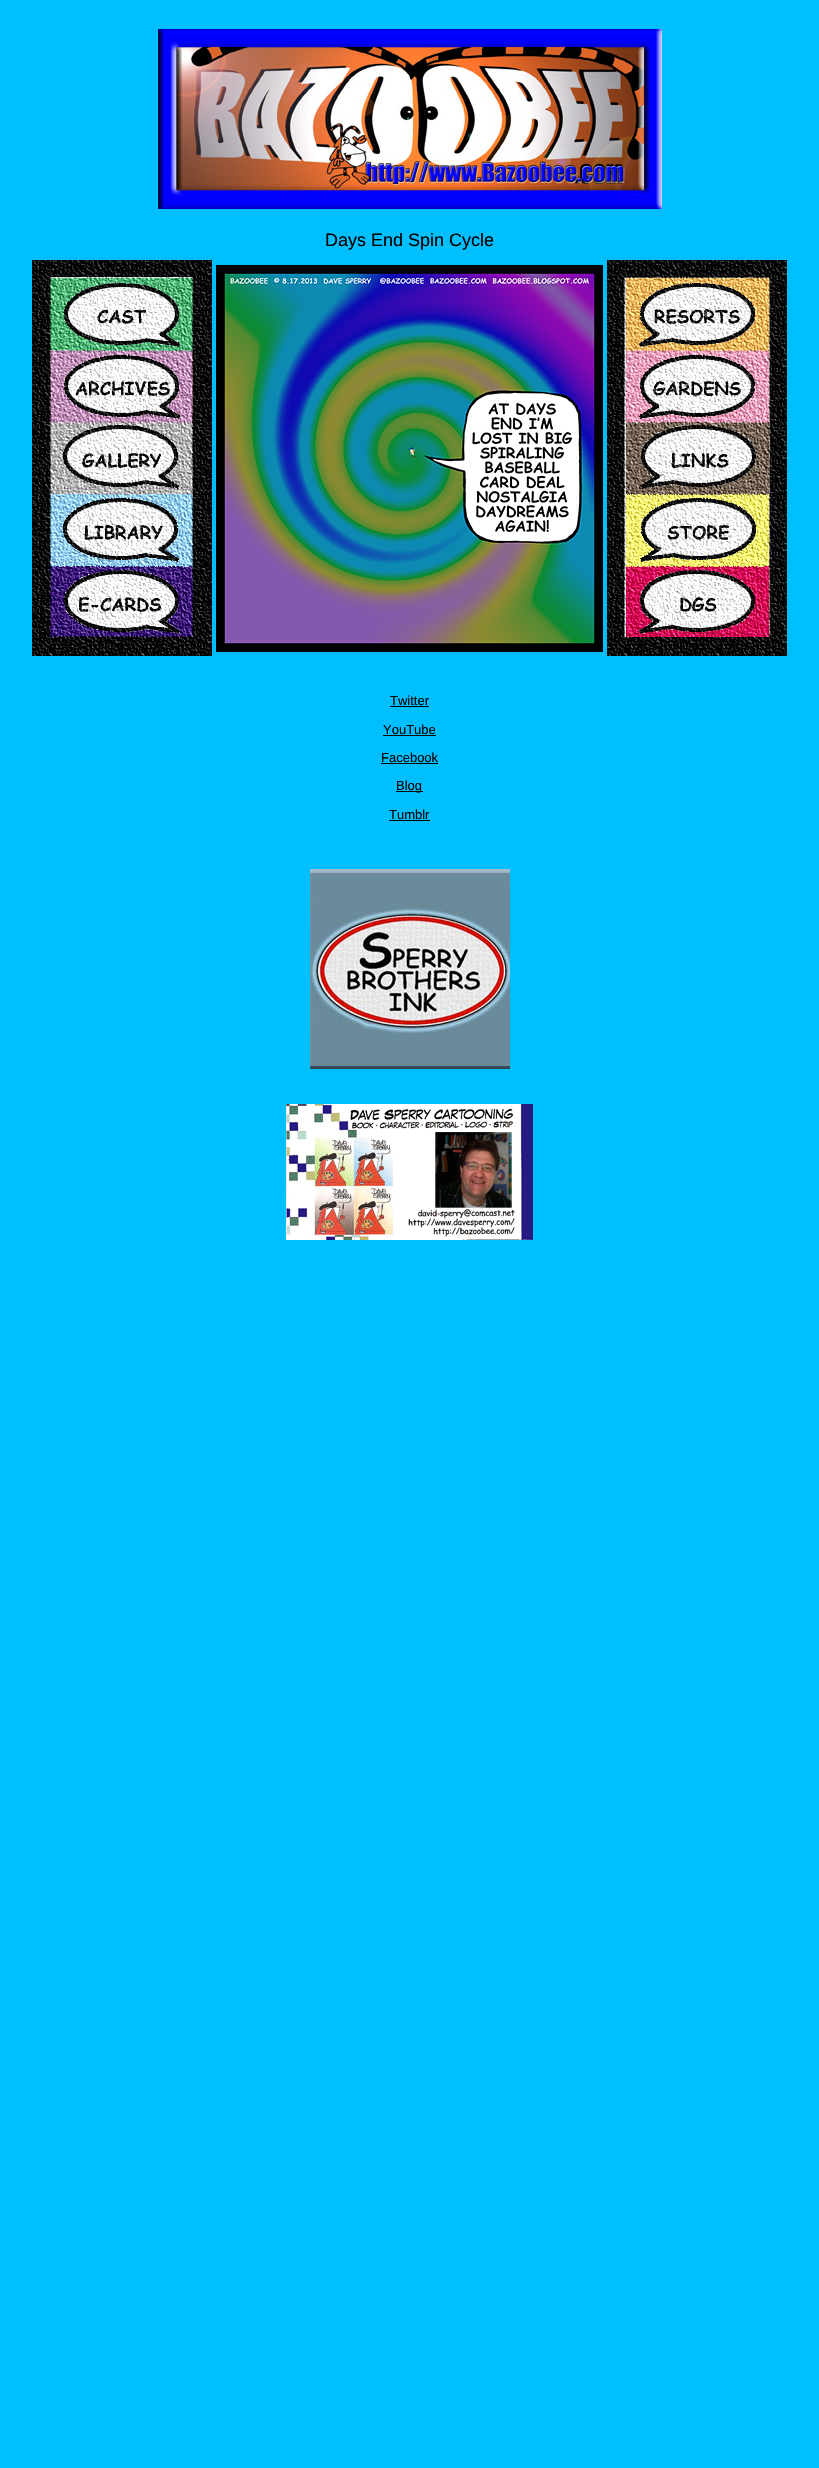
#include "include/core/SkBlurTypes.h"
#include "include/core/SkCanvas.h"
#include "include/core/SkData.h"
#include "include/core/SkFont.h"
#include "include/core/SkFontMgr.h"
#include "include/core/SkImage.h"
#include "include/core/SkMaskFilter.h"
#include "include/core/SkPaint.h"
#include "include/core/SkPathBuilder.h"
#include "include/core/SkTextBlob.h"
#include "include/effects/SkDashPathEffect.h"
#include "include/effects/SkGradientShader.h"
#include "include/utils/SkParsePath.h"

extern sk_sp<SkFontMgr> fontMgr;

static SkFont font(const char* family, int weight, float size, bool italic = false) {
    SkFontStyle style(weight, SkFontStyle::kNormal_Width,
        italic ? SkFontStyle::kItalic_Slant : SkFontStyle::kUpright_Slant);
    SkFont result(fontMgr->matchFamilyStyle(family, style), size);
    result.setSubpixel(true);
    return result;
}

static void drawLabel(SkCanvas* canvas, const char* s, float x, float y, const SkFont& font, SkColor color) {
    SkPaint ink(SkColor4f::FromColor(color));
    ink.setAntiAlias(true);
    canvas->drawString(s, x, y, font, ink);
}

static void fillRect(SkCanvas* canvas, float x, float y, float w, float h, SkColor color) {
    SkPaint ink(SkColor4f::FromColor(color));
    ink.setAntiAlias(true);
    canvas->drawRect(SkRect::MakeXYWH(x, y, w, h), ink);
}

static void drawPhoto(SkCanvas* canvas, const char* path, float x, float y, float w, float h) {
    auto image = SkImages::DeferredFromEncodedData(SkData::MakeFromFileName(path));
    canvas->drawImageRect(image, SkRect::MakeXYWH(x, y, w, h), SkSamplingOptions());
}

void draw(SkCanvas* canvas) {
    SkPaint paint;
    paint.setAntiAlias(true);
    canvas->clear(0xFF00BFFF);
    drawPhoto(canvas, "assets/img1.png", 158, 29, 504, 180);
    SkFont font1 = font("Liberation Sans", 400, 18);
    drawLabel(canvas, "Days End Spin Cycle", 325, 246, font1, 0xFF000000);
    drawPhoto(canvas, "assets/img2.png", 32, 260, 180, 90);
    drawPhoto(canvas, "assets/img3.png", 32, 350, 180, 72);
    drawPhoto(canvas, "assets/img4.png", 32, 422, 180, 72);
    drawPhoto(canvas, "assets/img5.png", 32, 494, 180, 72);
    drawPhoto(canvas, "assets/img6.png", 32, 566, 180, 90);
    drawPhoto(canvas, "assets/img7.png", 216, 265, 387, 387);
    drawPhoto(canvas, "assets/img8.png", 607, 260, 180, 90);
    drawPhoto(canvas, "assets/img9.png", 607, 350, 180, 72);
    drawPhoto(canvas, "assets/img10.png", 607, 422, 180, 72);
    drawPhoto(canvas, "assets/img11.png", 607, 494, 180, 72);
    drawPhoto(canvas, "assets/img12.png", 607, 566, 180, 90);
    SkFont font2 = font("Liberation Sans", 400, 13);
    drawLabel(canvas, "Twitter", 390, 705, font2, 0xFF000000);
    fillRect(canvas, 390, 706, 39, 1, 0xFF000000);
    drawLabel(canvas, "YouTube", 383, 734, font2, 0xFF000000);
    fillRect(canvas, 383, 735, 53, 1, 0xFF000000);
    drawLabel(canvas, "Facebook", 381, 762, font2, 0xFF000000);
    fillRect(canvas, 381, 763, 57, 1, 0xFF000000);
    fillRect(canvas, 396, 791, 27, 1, 0xFF000000);
    drawLabel(canvas, "Blog", 396, 790, font2, 0xFF000000);
    drawLabel(canvas, "Tumblr", 389, 819, font2, 0xFF000000);
    fillRect(canvas, 389, 820, 41, 1, 0xFF000000);
    drawPhoto(canvas, "assets/img13.png", 310, 869, 200, 200);
    drawPhoto(canvas, "assets/img14.png", 286, 1104, 247, 136);
}
